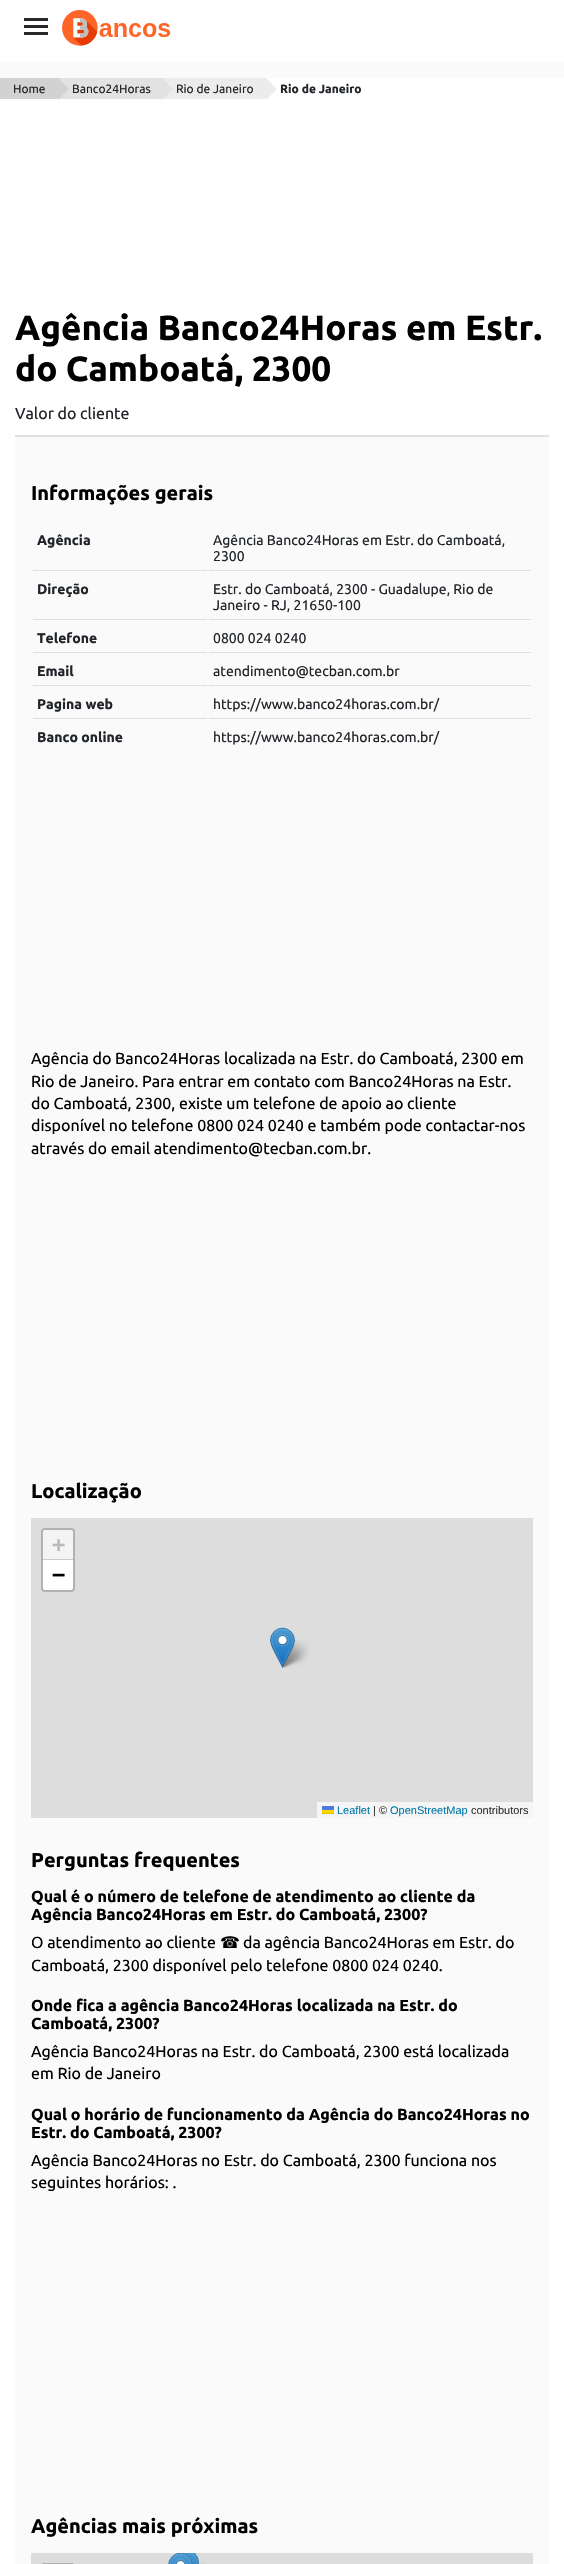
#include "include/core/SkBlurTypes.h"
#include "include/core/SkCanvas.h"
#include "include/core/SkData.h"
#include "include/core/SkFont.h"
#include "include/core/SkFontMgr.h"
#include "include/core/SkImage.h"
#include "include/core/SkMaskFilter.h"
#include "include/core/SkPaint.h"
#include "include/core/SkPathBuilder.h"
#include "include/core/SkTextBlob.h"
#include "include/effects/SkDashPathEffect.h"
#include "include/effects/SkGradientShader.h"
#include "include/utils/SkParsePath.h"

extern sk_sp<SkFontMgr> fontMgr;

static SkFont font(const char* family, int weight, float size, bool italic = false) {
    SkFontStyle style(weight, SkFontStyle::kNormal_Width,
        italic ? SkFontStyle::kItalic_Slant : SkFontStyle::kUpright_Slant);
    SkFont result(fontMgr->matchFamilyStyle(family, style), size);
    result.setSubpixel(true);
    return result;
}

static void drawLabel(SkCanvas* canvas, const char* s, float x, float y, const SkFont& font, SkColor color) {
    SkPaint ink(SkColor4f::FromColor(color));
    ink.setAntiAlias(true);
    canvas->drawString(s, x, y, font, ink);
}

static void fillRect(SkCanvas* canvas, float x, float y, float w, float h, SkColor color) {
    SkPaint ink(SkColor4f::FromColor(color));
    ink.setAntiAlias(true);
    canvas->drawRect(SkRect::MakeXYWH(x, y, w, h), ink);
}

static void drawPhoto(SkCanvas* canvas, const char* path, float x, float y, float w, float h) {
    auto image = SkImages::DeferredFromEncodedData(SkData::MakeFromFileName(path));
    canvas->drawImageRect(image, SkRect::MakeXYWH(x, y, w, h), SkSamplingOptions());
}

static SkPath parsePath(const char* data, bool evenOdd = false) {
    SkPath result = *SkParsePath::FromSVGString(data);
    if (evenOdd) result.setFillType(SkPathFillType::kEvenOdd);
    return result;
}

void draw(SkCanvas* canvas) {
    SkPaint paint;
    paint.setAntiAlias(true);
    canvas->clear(0xFFFFFFFF);
    fillRect(canvas, 24, 18, 24, 3, 0xFF282828);
    fillRect(canvas, 24, 25, 24, 3, 0xFF282828);
    fillRect(canvas, 24, 32, 24, 3, 0xFF282828);
    drawPhoto(canvas, "assets/img1.png", 62, 10, 109, 36);
    fillRect(canvas, 0, 62, 564, 16, 0xFFFAFAFA);
    fillRect(canvas, 0, 78, 59, 21, 0xFFD2D2D2);
    SkFont font1 = font("Ubuntu", 400, 12);
    drawLabel(canvas, "Home", 13, 93, font1, 0xFF212529);
    fillRect(canvas, 59, 78, 104, 21, 0xFFE2E2E2);
    paint.setColor(0xFFD2D2D2);
    canvas->drawPath(parsePath("M58 100V78L69 89Z"), paint);
    drawLabel(canvas, "Banco24Horas", 72, 93, font1, 0xFF212529);
    fillRect(canvas, 163, 78, 104, 21, 0xFFECECEC);
    paint.setColor(0xFFE2E2E2);
    canvas->drawPath(parsePath("M162 100V78L173 89Z"), paint);
    drawLabel(canvas, "Rio de Janeiro", 176, 93, font1, 0xFF212529);
    paint.setColor(0xFFECECEC);
    canvas->drawPath(parsePath("M266 100V78L277 89Z"), paint);
    SkFont font2 = font("Ubuntu", 700, 12);
    drawLabel(canvas, "Rio de Janeiro", 280, 93, font2, 0xFF212529);
    SkFont font3 = font("Ubuntu", 700, 35);
    drawLabel(canvas, "Agência Banco24Horas em Estr.", 15, 340, font3, 0xFF000000);
    drawLabel(canvas, "do Camboatá, 2300", 15, 381, font3, 0xFF000000);
    SkFont font4 = font("Ubuntu", 400, 16);
    drawLabel(canvas, "Valor do cliente", 15, 419, font4, 0xFF212529);
    fillRect(canvas, 15, 437, 534, 2127, 0xFFFAFAFA);
    fillRect(canvas, 15, 435, 534, 2, 0xFFE1E1E1);
    SkFont font5 = font("Ubuntu", 700, 20);
    drawLabel(canvas, "Informações gerais", 31, 500, font5, 0xFF000000);
    SkFont font6 = font("Ubuntu", 700, 14);
    drawLabel(canvas, "Agência", 37, 545, font6, 0xFF212529);
    SkFont font7 = font("Ubuntu", 400, 14);
    drawLabel(canvas, "Agência Banco24Horas em Estr. do Camboatá,", 213, 545, font7, 0xFF212529);
    drawLabel(canvas, "2300", 213, 561, font7, 0xFF212529);
    fillRect(canvas, 33, 570, 174, 1, 0xFFE1E1E1);
    drawLabel(canvas, "Direção", 37, 594, font6, 0xFF212529);
    fillRect(canvas, 209, 570, 322, 1, 0xFFE1E1E1);
    drawLabel(canvas, "Estr. do Camboatá, 2300 - Guadalupe, Rio de", 213, 594, font7, 0xFF212529);
    drawLabel(canvas, "Janeiro - RJ, 21650-100", 213, 610, font7, 0xFF212529);
    fillRect(canvas, 33, 619, 174, 1, 0xFFE1E1E1);
    drawLabel(canvas, "Telefone", 37, 643, font6, 0xFF212529);
    fillRect(canvas, 209, 619, 322, 1, 0xFFE1E1E1);
    drawLabel(canvas, "0800 024 0240", 213, 643, font7, 0xFF212529);
    fillRect(canvas, 33, 652, 174, 1, 0xFFE1E1E1);
    drawLabel(canvas, "Email", 37, 676, font6, 0xFF212529);
    fillRect(canvas, 209, 652, 322, 1, 0xFFE1E1E1);
    drawLabel(canvas, "atendimento@tecban.com.br", 213, 676, font7, 0xFF212529);
    fillRect(canvas, 33, 685, 174, 1, 0xFFE1E1E1);
    drawLabel(canvas, "Pagina web", 37, 709, font6, 0xFF212529);
    fillRect(canvas, 209, 685, 322, 1, 0xFFE1E1E1);
    drawLabel(canvas, "https://www.banco24horas.com.br/", 213, 709, font7, 0xFF212529);
    fillRect(canvas, 33, 718, 174, 1, 0xFFE1E1E1);
    drawLabel(canvas, "Banco online", 37, 742, font6, 0xFF212529);
    fillRect(canvas, 209, 718, 322, 1, 0xFFE1E1E1);
    drawLabel(canvas, "https://www.banco24horas.com.br/", 213, 742, font7, 0xFF212529);
    drawLabel(canvas, "Agência do Banco24Horas localizada na Estr. do Camboatá, 2300 em", 31, 1064, font4, 0xFF000000);
    drawLabel(canvas, "Rio de Janeiro. Para entrar em contato com Banco24Horas na Estr.", 31, 1087, font4, 0xFF000000);
    drawLabel(canvas, "do Camboatá, 2300, existe um telefone de apoio ao cliente", 31, 1109, font4, 0xFF000000);
    drawLabel(canvas, "disponível no telefone 0800 024 0240 e também pode contactar-nos", 31, 1131, font4, 0xFF000000);
    drawLabel(canvas, "através do email atendimento@tecban.com.br.", 31, 1154, font4, 0xFF000000);
    drawLabel(canvas, "Localização", 31, 1498, font5, 0xFF000000);
    fillRect(canvas, 31, 1518, 502, 300, 0xFFDDDDDD);
    paint.setStroke(true);
    paint.setStrokeWidth(2);
    paint.setColor(0xFFB1B1B1);
    canvas->drawRoundRect(SkRect::MakeXYWH(42, 1529, 32, 62), 3, 3, paint);
    paint.setStroke(false);
    paint.setColor(0xFFF4F4F4);
    canvas->drawPath(parsePath("M45 1530H71C72 1530 73 1531 73 1532V1560H43V1532C43 1531 44 1530 45 1530Z"), paint);
    fillRect(canvas, 43, 1559, 30, 1, 0xFFCCCCCC);
    SkFont font8 = font("DejaVu Sans Mono", 700, 22);
    drawLabel(canvas, "+", 52, 1552, font8, 0xFFBBBBBB);
    paint.setColor(0xFFFFFFFF);
    canvas->drawPath(parsePath("M43 1560H73V1588C73 1589 72 1590 71 1590H45C44 1590 43 1589 43 1588Z"), paint);
    drawLabel(canvas, "−", 52, 1582, font8, 0xFF000000);
    fillRect(canvas, 317, 1802, 216, 16, 0xFFF5F5F5);
    SkFont font9 = font("Liberation Sans", 400, 11);
    drawLabel(canvas, "Leaflet", 337, 1814, font9, 0xFF0078A8);
    fillRect(canvas, 322, 1806, 12, 4, 0xFF4C7BE1);
    fillRect(canvas, 322, 1810, 12, 3, 0xFFFFD500);
    fillRect(canvas, 322, 1813, 12, 1, 0xFFE0BC00);
    drawLabel(canvas, "| ©", 373, 1814, font9, 0xFF333333);
    drawLabel(canvas, "OpenStreetMap", 390, 1814, font9, 0xFF0078A8);
    drawLabel(canvas, "contributors", 471, 1814, font9, 0xFF333333);
    drawPhoto(canvas, "assets/img3.png", 280, 1640, 29, 28);
    drawPhoto(canvas, "assets/img2.png", 270, 1627, 25, 41);
    drawLabel(canvas, "Perguntas frequentes", 31, 1867, font5, 0xFF000000);
    SkFont font10 = font("Ubuntu", 700, 16);
    drawLabel(canvas, "Qual é o número de telefone de atendimento ao cliente da", 31, 1902, font10, 0xFF000000);
    drawLabel(canvas, "Agência Banco24Horas em Estr. do Camboatá, 2300?", 31, 1920, font10, 0xFF000000);
    drawLabel(canvas, "O atendimento ao cliente", 31, 1948, font4, 0xFF000000);
    SkFont font11 = font("DejaVu Sans", 400, 16);
    drawLabel(canvas, "☎", 220, 1948, font11, 0xFF000000);
    drawLabel(canvas, "da agência Banco24Horas em Estr. do", 243, 1948, font4, 0xFF000000);
    drawLabel(canvas, "Camboatá, 2300 disponível pelo telefone 0800 024 0240.", 31, 1971, font4, 0xFF000000);
    drawLabel(canvas, "Onde fica a agência Banco24Horas localizada na Estr. do", 31, 2011, font10, 0xFF000000);
    drawLabel(canvas, "Camboatá, 2300?", 31, 2029, font10, 0xFF000000);
    drawLabel(canvas, "Agência Banco24Horas na Estr. do Camboatá, 2300 está localizada", 31, 2057, font4, 0xFF000000);
    drawLabel(canvas, "em Rio de Janeiro", 31, 2079, font4, 0xFF000000);
    drawLabel(canvas, "Qual o horário de funcionamento da Agência do Banco24Horas no", 31, 2120, font10, 0xFF000000);
    drawLabel(canvas, "Estr. do Camboatá, 2300?", 31, 2138, font10, 0xFF000000);
    drawLabel(canvas, "Agência Banco24Horas no Estr. do Camboatá, 2300 funciona nos", 31, 2166, font4, 0xFF000000);
    drawLabel(canvas, "seguintes horários: .", 31, 2188, font4, 0xFF000000);
    drawLabel(canvas, "Agências mais próximas", 31, 2533, font5, 0xFF000000);
    fillRect(canvas, 31, 2553, 502, 11, 0xFFDDDDDD);
    drawPhoto(canvas, "assets/img6.png", 198, 2562, 8, 2);
    drawPhoto(canvas, "assets/img5.png", 176, 2553, 23, 11);
    drawPhoto(canvas, "assets/img4.png", 168, 2553, 25, 11);
    paint.setStroke(true);
    paint.setColor(0xFFB1B1B1);
    canvas->drawRoundRect(SkRect::MakeXYWH(42, 2564, 32, 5), 3, 3, paint);
}
